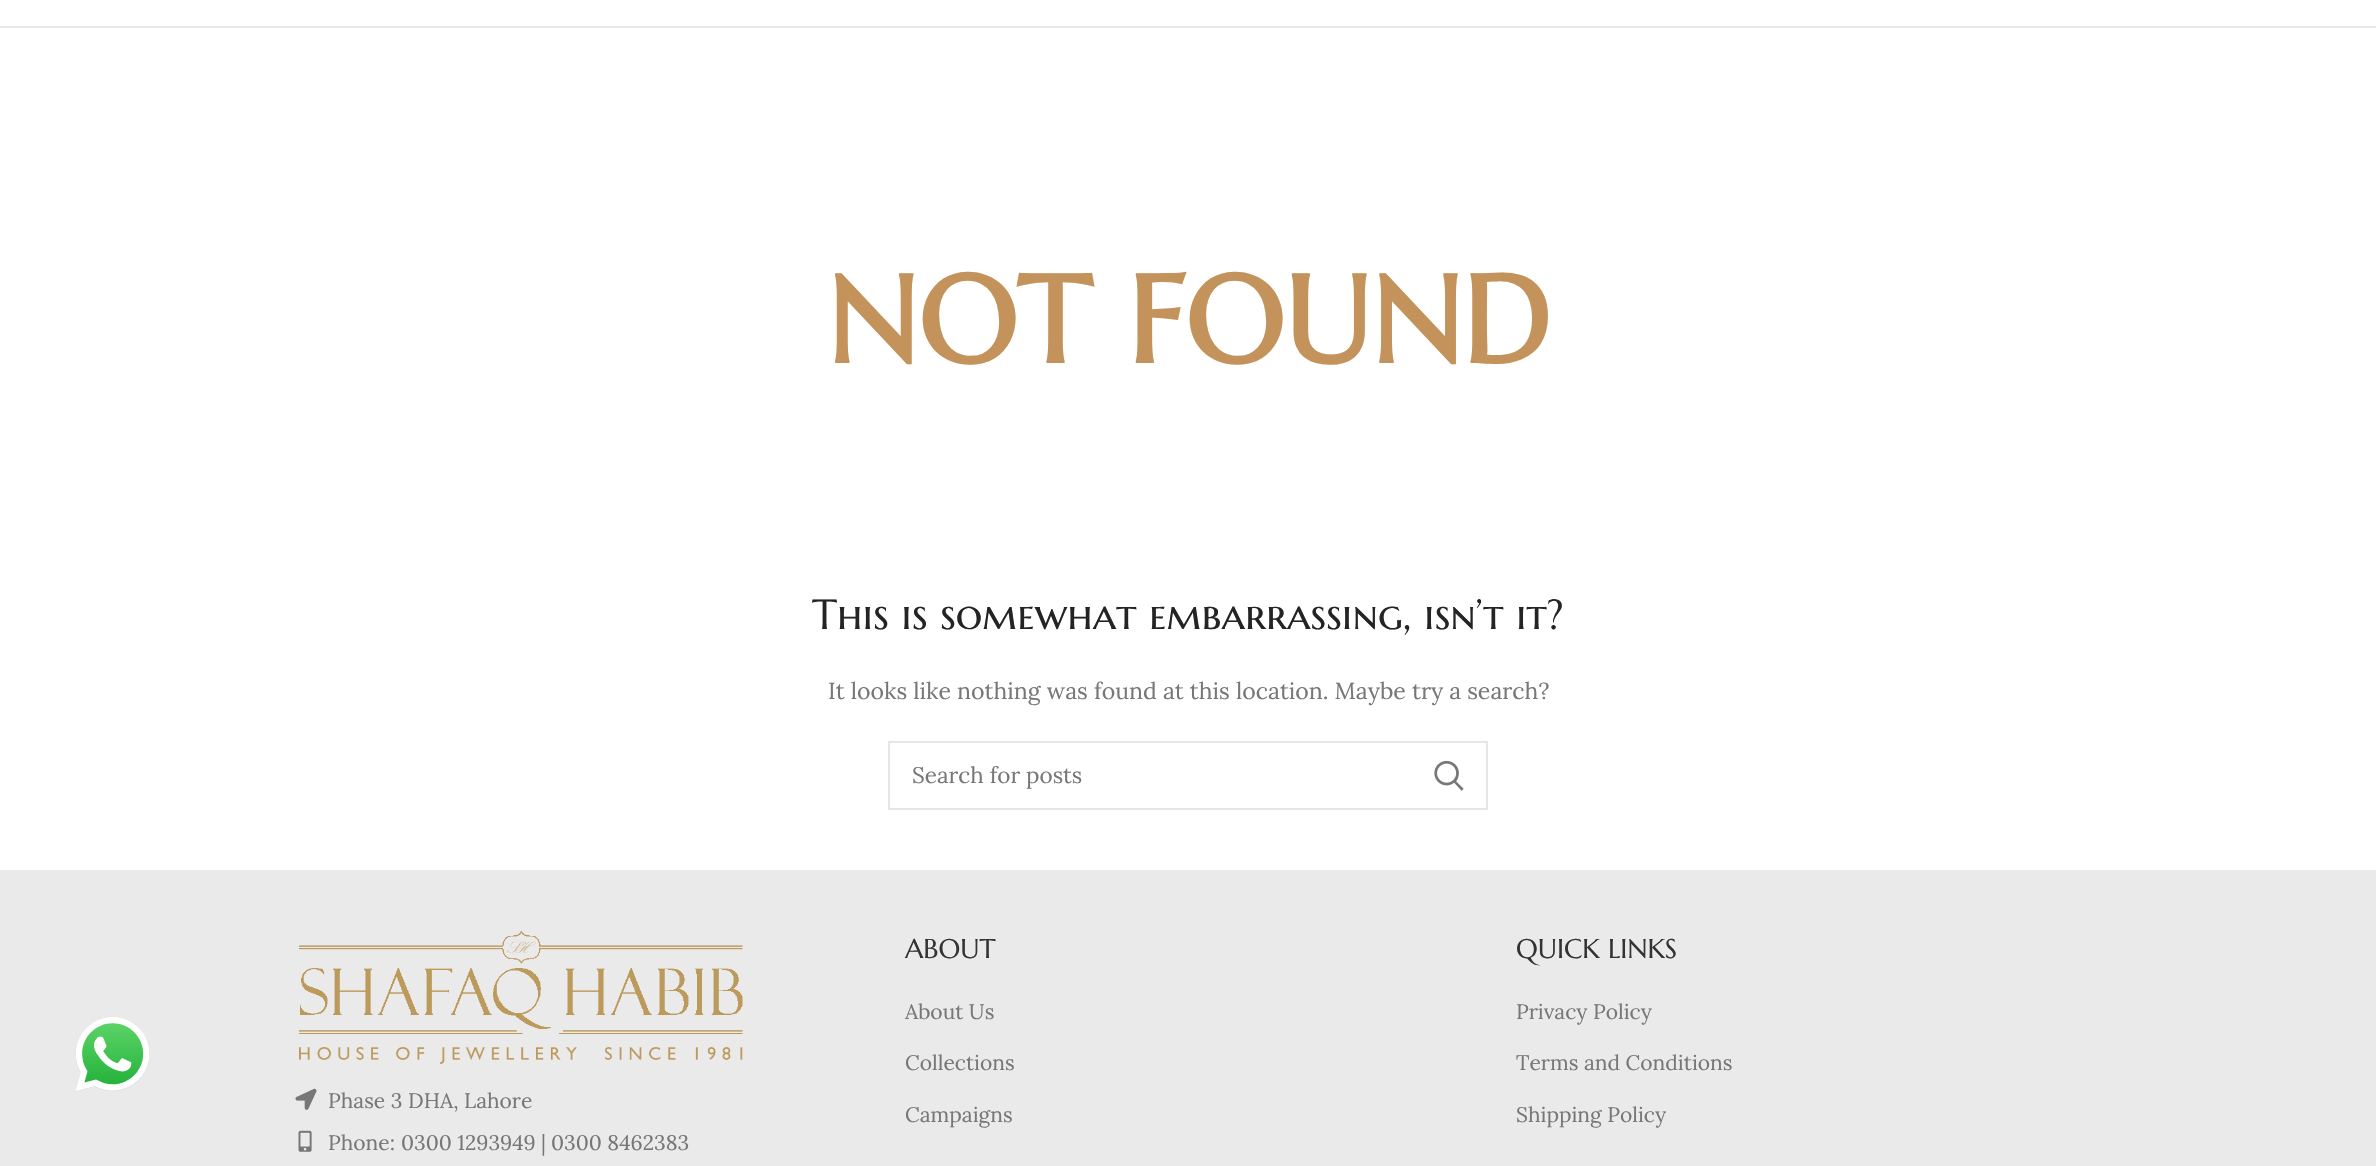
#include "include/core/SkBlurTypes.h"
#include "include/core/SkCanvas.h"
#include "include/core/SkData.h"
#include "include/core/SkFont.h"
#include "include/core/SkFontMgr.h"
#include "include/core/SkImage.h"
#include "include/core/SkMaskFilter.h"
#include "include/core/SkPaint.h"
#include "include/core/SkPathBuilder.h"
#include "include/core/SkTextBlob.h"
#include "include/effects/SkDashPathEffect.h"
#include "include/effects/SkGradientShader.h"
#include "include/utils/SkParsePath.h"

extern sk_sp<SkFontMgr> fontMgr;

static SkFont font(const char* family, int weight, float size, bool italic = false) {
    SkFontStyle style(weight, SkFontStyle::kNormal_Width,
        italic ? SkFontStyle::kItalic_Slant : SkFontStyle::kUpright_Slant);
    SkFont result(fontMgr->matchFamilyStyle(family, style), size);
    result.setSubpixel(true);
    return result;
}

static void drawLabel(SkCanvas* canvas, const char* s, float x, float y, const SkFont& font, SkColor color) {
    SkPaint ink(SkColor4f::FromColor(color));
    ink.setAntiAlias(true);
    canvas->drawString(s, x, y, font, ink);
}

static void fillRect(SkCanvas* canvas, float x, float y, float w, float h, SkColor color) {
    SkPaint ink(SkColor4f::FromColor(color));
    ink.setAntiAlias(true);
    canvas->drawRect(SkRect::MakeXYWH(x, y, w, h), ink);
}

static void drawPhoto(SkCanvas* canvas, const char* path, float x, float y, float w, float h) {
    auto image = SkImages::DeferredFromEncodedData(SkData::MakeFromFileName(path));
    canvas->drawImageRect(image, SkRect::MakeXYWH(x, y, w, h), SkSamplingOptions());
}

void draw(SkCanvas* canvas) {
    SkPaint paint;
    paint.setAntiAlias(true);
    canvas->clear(0xFFFFFFFF);
    fillRect(canvas, 0, 870, 2376, 296, 0xFFEAEAEA);
    drawPhoto(canvas, "assets/img1.png", 75, 1017, 74, 75);
    fillRect(canvas, 0, 26, 2376, 2, 0xFFE8E8E8);
    SkFont font1 = font("Marcellus SC", 700, 123);
    drawLabel(canvas, "NOT FOUND", 827, 363, font1, 0xFFC3935B);
    SkFont font2 = font("Marcellus SC", 400, 42);
    drawLabel(canvas, "This is somewhat embarrassing, isn’t it?", 812, 629, font2, 0xFF242424);
    SkFont font3 = font("Lora", 400, 23.1f);
    drawLabel(canvas, "It looks like nothing was found at this location. Maybe try a search?", 828, 699, font3, 0xFF777777);
    paint.setStroke(true);
    paint.setStrokeWidth(2);
    paint.setColor(0xFFE6E6E6);
    canvas->drawRect(SkRect::MakeXYWH(889, 742, 598, 67), paint);
    SkFont font4 = font("Lora", 400, 22.5f);
    drawLabel(canvas, "Search for posts", 912, 783, font4, 0xFF777777);
    drawPhoto(canvas, "assets/img2.png", 1434, 760, 30, 31);
    drawPhoto(canvas, "assets/img3.png", 299, 931, 444, 133);
    drawPhoto(canvas, "assets/img4.png", 295, 1088, 22, 22);
    SkFont font5 = font("Lora", 400, 21);
    drawLabel(canvas, "Phase 3 DHA, Lahore", 328, 1108, font5, 0xFF777777);
    drawPhoto(canvas, "assets/img5.png", 298, 1130, 14, 22);
    drawLabel(canvas, "Phone:", 328, 1150, font5, 0xFF777777);
    drawLabel(canvas, "0300 1293949", 401, 1150, font5, 0xFF777777);
    drawLabel(canvas, "|", 541, 1150, font5, 0xFF777777);
    drawLabel(canvas, "0300 8462383", 551, 1150, font5, 0xFF777777);
    SkFont font6 = font("Marcellus SC", 400, 27);
    drawLabel(canvas, "ABOUT", 905, 958, font6, 0xFF333333);
    drawLabel(canvas, "About Us", 905, 1019, font5, 0xFF777777);
    drawLabel(canvas, "Collections", 905, 1070, font5, 0xFF777777);
    drawLabel(canvas, "Campaigns", 905, 1122, font5, 0xFF777777);
    drawLabel(canvas, "QUICK LINKS", 1516, 958, font6, 0xFF333333);
    drawLabel(canvas, "Privacy Policy", 1516, 1019, font5, 0xFF777777);
    drawLabel(canvas, "Terms and Conditions", 1516, 1070, font5, 0xFF777777);
    drawLabel(canvas, "Shipping Policy", 1516, 1122, font5, 0xFF777777);
}
